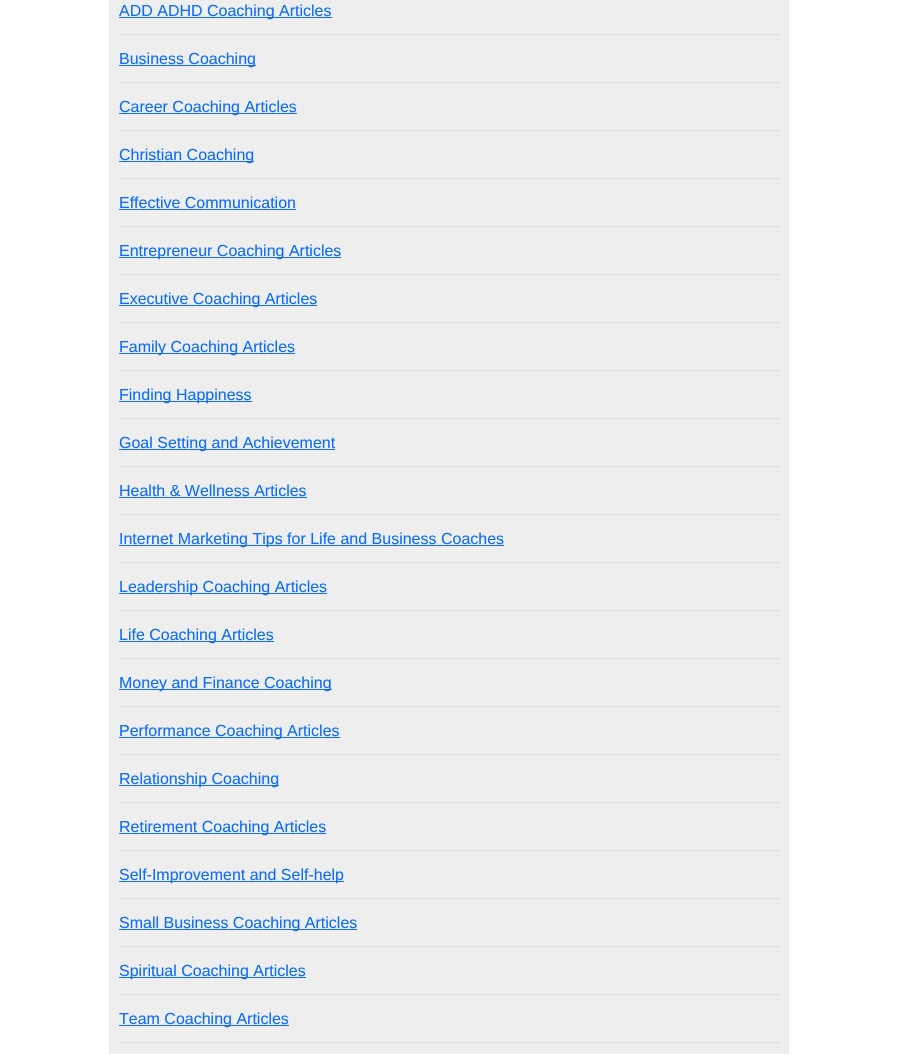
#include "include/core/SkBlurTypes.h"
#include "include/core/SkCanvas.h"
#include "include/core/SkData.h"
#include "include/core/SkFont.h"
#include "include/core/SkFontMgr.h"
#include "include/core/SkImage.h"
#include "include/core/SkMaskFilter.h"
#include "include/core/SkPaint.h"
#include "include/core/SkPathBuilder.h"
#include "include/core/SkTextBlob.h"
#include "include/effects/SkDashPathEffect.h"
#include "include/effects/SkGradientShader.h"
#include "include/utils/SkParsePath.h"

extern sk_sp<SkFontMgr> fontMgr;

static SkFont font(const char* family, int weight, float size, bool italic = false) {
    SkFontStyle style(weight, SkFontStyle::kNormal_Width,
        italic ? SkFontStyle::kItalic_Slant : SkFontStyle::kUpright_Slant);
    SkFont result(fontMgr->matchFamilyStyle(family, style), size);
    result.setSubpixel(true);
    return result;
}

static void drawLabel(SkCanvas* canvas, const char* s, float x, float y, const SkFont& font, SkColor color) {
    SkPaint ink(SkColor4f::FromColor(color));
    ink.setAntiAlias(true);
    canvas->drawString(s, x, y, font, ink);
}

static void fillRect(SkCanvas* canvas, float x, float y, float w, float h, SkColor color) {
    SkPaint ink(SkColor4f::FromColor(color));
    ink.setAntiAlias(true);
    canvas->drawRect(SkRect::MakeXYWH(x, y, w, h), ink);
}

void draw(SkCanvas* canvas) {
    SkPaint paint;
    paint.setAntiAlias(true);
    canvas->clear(0xFFFFFFFF);
    fillRect(canvas, 109, 0, 680, 1054, 0xFFEEEEEE);
    fillRect(canvas, 119, 34, 660, 1, 0xFFDDDDDD);
    fillRect(canvas, 119, 17, 213, 1, 0xFF0D6EFD);
    SkFont font1 = font("Liberation Sans", 400, 16);
    drawLabel(canvas, "ADD ADHD Coaching Articles", 119, 16, font1, 0xFF0D6EFD);
    fillRect(canvas, 119, 82, 660, 1, 0xFFDDDDDD);
    fillRect(canvas, 119, 65, 137, 1, 0xFF0D6EFD);
    drawLabel(canvas, "Business Coaching", 119, 64, font1, 0xFF0D6EFD);
    fillRect(canvas, 119, 130, 660, 1, 0xFFDDDDDD);
    fillRect(canvas, 119, 113, 178, 1, 0xFF0D6EFD);
    drawLabel(canvas, "Career Coaching Articles", 119, 112, font1, 0xFF0D6EFD);
    fillRect(canvas, 119, 178, 660, 1, 0xFFDDDDDD);
    fillRect(canvas, 119, 161, 135, 1, 0xFF0D6EFD);
    drawLabel(canvas, "Christian Coaching", 119, 160, font1, 0xFF0D6EFD);
    fillRect(canvas, 119, 226, 660, 1, 0xFFDDDDDD);
    drawLabel(canvas, "Effective Communication", 119, 208, font1, 0xFF0D6EFD);
    fillRect(canvas, 119, 209, 177, 1, 0xFF0D6EFD);
    fillRect(canvas, 119, 274, 660, 1, 0xFFDDDDDD);
    fillRect(canvas, 119, 257, 222, 1, 0xFF0D6EFD);
    drawLabel(canvas, "Entrepreneur Coaching Articles", 119, 256, font1, 0xFF0D6EFD);
    fillRect(canvas, 119, 322, 660, 1, 0xFFDDDDDD);
    fillRect(canvas, 119, 305, 198, 1, 0xFF0D6EFD);
    drawLabel(canvas, "Executive Coaching Articles", 119, 304, font1, 0xFF0D6EFD);
    fillRect(canvas, 119, 370, 660, 1, 0xFFDDDDDD);
    fillRect(canvas, 119, 353, 176, 1, 0xFF0D6EFD);
    drawLabel(canvas, "Family Coaching Articles", 119, 352, font1, 0xFF0D6EFD);
    fillRect(canvas, 119, 418, 660, 1, 0xFFDDDDDD);
    fillRect(canvas, 119, 401, 133, 1, 0xFF0D6EFD);
    drawLabel(canvas, "Finding Happiness", 119, 400, font1, 0xFF0D6EFD);
    fillRect(canvas, 119, 466, 660, 1, 0xFFDDDDDD);
    fillRect(canvas, 119, 449, 216, 1, 0xFF0D6EFD);
    drawLabel(canvas, "Goal Setting and Achievement", 119, 448, font1, 0xFF0D6EFD);
    fillRect(canvas, 119, 514, 660, 1, 0xFFDDDDDD);
    drawLabel(canvas, "Health & Wellness Articles", 119, 496, font1, 0xFF0D6EFD);
    fillRect(canvas, 119, 497, 188, 1, 0xFF0D6EFD);
    fillRect(canvas, 119, 562, 660, 1, 0xFFDDDDDD);
    fillRect(canvas, 119, 545, 385, 1, 0xFF0D6EFD);
    drawLabel(canvas, "Internet Marketing Tips for Life and Business Coaches", 119, 544, font1, 0xFF0D6EFD);
    fillRect(canvas, 119, 610, 660, 1, 0xFFDDDDDD);
    fillRect(canvas, 119, 593, 208, 1, 0xFF0D6EFD);
    drawLabel(canvas, "Leadership Coaching Articles", 119, 592, font1, 0xFF0D6EFD);
    fillRect(canvas, 119, 658, 660, 1, 0xFFDDDDDD);
    fillRect(canvas, 119, 641, 155, 1, 0xFF0D6EFD);
    drawLabel(canvas, "Life Coaching Articles", 119, 640, font1, 0xFF0D6EFD);
    fillRect(canvas, 119, 706, 660, 1, 0xFFDDDDDD);
    fillRect(canvas, 119, 689, 213, 1, 0xFF0D6EFD);
    drawLabel(canvas, "Money and Finance Coaching", 119, 688, font1, 0xFF0D6EFD);
    fillRect(canvas, 119, 754, 660, 1, 0xFFDDDDDD);
    fillRect(canvas, 119, 737, 221, 1, 0xFF0D6EFD);
    drawLabel(canvas, "Performance Coaching Articles", 119, 736, font1, 0xFF0D6EFD);
    fillRect(canvas, 119, 802, 660, 1, 0xFFDDDDDD);
    fillRect(canvas, 119, 785, 160, 1, 0xFF0D6EFD);
    drawLabel(canvas, "Relationship Coaching", 119, 784, font1, 0xFF0D6EFD);
    fillRect(canvas, 119, 850, 660, 1, 0xFFDDDDDD);
    fillRect(canvas, 119, 833, 207, 1, 0xFF0D6EFD);
    drawLabel(canvas, "Retirement Coaching Articles", 119, 832, font1, 0xFF0D6EFD);
    fillRect(canvas, 119, 898, 660, 1, 0xFFDDDDDD);
    fillRect(canvas, 119, 881, 225, 1, 0xFF0D6EFD);
    drawLabel(canvas, "Self-Improvement and Self-help", 119, 880, font1, 0xFF0D6EFD);
    fillRect(canvas, 119, 946, 660, 1, 0xFFDDDDDD);
    fillRect(canvas, 119, 929, 238, 1, 0xFF0D6EFD);
    drawLabel(canvas, "Small Business Coaching Articles", 119, 928, font1, 0xFF0D6EFD);
    fillRect(canvas, 119, 994, 660, 1, 0xFFDDDDDD);
    fillRect(canvas, 119, 977, 187, 1, 0xFF0D6EFD);
    drawLabel(canvas, "Spiritual Coaching Articles", 119, 976, font1, 0xFF0D6EFD);
    fillRect(canvas, 119, 1042, 660, 1, 0xFFDDDDDD);
    fillRect(canvas, 119, 1025, 170, 1, 0xFF0D6EFD);
    drawLabel(canvas, "Team Coaching Articles", 119, 1024, font1, 0xFF0D6EFD);
}
